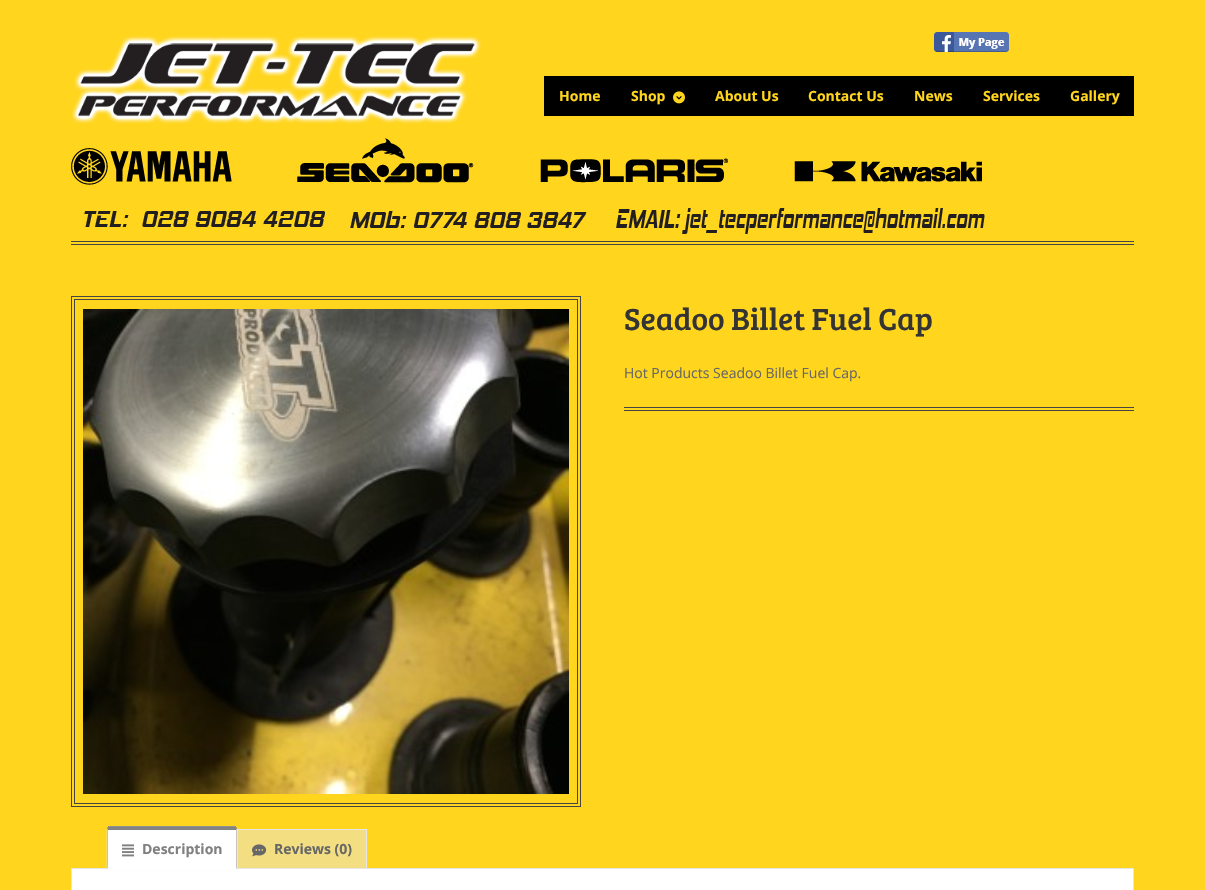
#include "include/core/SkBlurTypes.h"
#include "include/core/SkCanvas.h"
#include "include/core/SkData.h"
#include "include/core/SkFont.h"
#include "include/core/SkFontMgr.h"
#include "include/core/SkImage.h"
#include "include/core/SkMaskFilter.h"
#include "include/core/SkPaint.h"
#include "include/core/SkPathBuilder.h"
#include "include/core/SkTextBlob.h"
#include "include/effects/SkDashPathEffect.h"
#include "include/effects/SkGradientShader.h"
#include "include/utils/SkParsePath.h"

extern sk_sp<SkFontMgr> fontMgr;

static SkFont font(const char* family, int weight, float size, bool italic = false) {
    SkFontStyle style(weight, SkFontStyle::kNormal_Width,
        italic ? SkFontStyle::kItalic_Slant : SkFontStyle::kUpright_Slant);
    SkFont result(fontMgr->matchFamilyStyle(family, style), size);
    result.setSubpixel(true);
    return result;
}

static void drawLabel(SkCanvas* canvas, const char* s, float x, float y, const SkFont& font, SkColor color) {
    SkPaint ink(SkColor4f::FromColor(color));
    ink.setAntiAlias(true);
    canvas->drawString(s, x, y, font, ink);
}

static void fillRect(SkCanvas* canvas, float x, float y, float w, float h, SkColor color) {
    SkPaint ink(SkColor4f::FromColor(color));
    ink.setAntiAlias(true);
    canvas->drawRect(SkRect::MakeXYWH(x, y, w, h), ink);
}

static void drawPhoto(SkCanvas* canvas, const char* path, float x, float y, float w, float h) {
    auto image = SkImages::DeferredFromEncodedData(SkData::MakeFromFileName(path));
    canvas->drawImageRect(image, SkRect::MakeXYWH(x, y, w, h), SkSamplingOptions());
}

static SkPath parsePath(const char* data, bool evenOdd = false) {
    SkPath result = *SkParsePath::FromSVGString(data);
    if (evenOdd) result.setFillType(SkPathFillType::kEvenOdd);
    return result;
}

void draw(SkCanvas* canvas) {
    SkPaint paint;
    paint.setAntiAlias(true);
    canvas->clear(0xFFFFD51E);
    fillRect(canvas, 71, 241, 1063, 1, 0xFF454545);
    fillRect(canvas, 71, 244, 1063, 1, 0xFF454545);
    drawPhoto(canvas, "assets/img1.png", 71, 36, 410, 88);
    drawPhoto(canvas, "assets/img2.png", 934, 32, 75, 20);
    fillRect(canvas, 544, 76, 72, 40, 0xFF000000);
    SkFont font1 = font("Open Sans", 700, 14);
    drawLabel(canvas, "Home", 559, 101, font1, 0xFFFFD51E);
    paint.setColor(0xFF000000);
    canvas->drawRect(SkRect::MakeXYWH(616.5f, 76.5f, 83, 39), paint);
    paint.setStroke(true);
    paint.setStrokeWidth(1);
    canvas->drawRect(SkRect::MakeXYWH(616.5f, 76.5f, 83, 39), paint);
    drawLabel(canvas, "Shop", 631, 101, font1, 0xFFFFD51E);
    drawPhoto(canvas, "assets/img3.png", 673, 91, 12, 13);
    fillRect(canvas, 700, 76, 434, 40, 0xFF000000);
    drawLabel(canvas, "About Us", 715, 101, font1, 0xFFFFD51E);
    drawLabel(canvas, "Contact Us", 808, 101, font1, 0xFFFFD51E);
    drawLabel(canvas, "News", 914, 101, font1, 0xFFFFD51E);
    drawLabel(canvas, "Services", 983, 101, font1, 0xFFFFD51E);
    drawLabel(canvas, "Gallery", 1070, 101, font1, 0xFFFFD51E);
    drawPhoto(canvas, "assets/img4.png", 71, 148, 161, 37);
    drawPhoto(canvas, "assets/img5.png", 297, 138, 177, 45);
    drawPhoto(canvas, "assets/img6.png", 540, 158, 188, 25);
    drawPhoto(canvas, "assets/img7.png", 794, 161, 188, 21);
    drawPhoto(canvas, "assets/img8.png", 84, 211, 241, 16);
    drawPhoto(canvas, "assets/img9.png", 350, 211, 237, 17);
    drawPhoto(canvas, "assets/img10.png", 616, 208, 369, 26);
    paint.setColor(0xFF454545);
    canvas->drawRect(SkRect::MakeXYWH(71.5f, 296.5f, 509, 510), paint);
    canvas->drawRect(SkRect::MakeXYWH(74.5f, 299.5f, 503, 504), paint);
    drawPhoto(canvas, "assets/img11.png", 83, 309, 486, 485);
    SkFont font2 = font("Bree Serif", 400, 31.5f);
    drawLabel(canvas, "Seadoo Billet Fuel Cap", 624, 330, font2, 0xFF343434);
    SkFont font3 = font("Open Sans", 400, 14);
    drawLabel(canvas, "Hot Products Seadoo Billet Fuel Cap.", 624, 378, font3, 0xFF676767);
    fillRect(canvas, 624, 407, 510, 1, 0xFF454545);
    fillRect(canvas, 624, 410, 510, 1, 0xFF454545);
    paint.setStroke(false);
    paint.setColor(0xFF808080);
    canvas->drawPath(parsePath("M109 827H235C237 827 237 828 237 830H107C107 828 107 827 109 827Z"), paint);
    fillRect(canvas, 108, 826, 128, 1, 0xFF919191);
    fillRect(canvas, 238, 830, 128, 38, 0xFFF3DE82);
    fillRect(canvas, 237, 829, 130, 1, 0xFFE6E6E6);
    fillRect(canvas, 237, 829, 1, 39, 0xFFE6E6E6);
    paint.setColor(0xFFFFFFFF);
    canvas->drawRect(SkRect::MakeXYWH(71.5f, 868.5f, 1062, 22), paint);
    paint.setStroke(true);
    paint.setColor(0xFFE6E6E6);
    canvas->drawRect(SkRect::MakeXYWH(71.5f, 868.5f, 1062, 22), paint);
    paint.setStroke(false);
    paint.setMaskFilter(SkMaskFilter::MakeBlur(kNormal_SkBlurStyle, 1));
    canvas->drawRect(SkRect::MakeXYWH(107, 830, 130, 39), paint);
    paint.setMaskFilter(nullptr);
    fillRect(canvas, 108, 830, 128, 40, 0xFFFFFFFF);
    fillRect(canvas, 107, 829, 130, 1, 0xFF808080);
    fillRect(canvas, 236, 829, 1, 39, 0xFFC4C4C4);
    fillRect(canvas, 107, 829, 1, 39, 0xFFC4C4C4);
    drawPhoto(canvas, "assets/img12.png", 122, 844, 12, 13);
    drawLabel(canvas, "Description", 142, 854, font1, 0xFF808080);
    fillRect(canvas, 366, 829, 1, 39, 0xFFE6E6E6);
    drawPhoto(canvas, "assets/img13.png", 252, 844, 15, 13);
    drawLabel(canvas, "Reviews (0)", 274, 854, font1, 0xFF676767);
}
